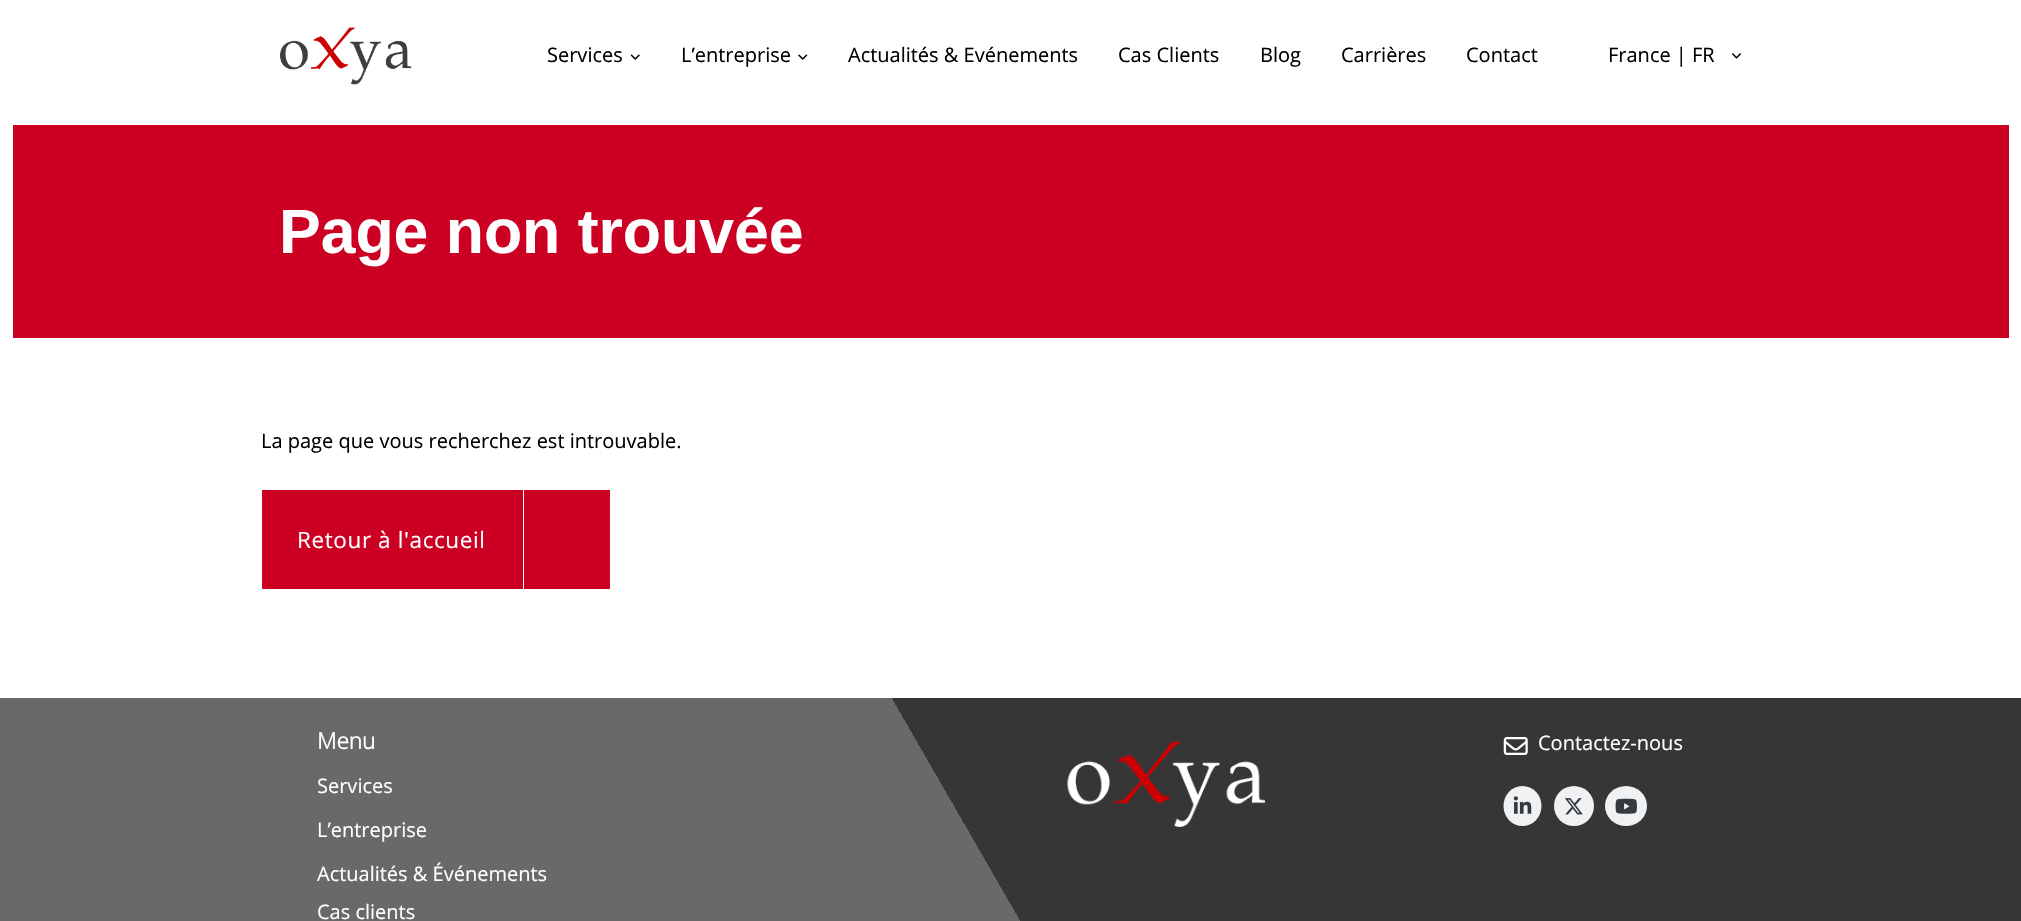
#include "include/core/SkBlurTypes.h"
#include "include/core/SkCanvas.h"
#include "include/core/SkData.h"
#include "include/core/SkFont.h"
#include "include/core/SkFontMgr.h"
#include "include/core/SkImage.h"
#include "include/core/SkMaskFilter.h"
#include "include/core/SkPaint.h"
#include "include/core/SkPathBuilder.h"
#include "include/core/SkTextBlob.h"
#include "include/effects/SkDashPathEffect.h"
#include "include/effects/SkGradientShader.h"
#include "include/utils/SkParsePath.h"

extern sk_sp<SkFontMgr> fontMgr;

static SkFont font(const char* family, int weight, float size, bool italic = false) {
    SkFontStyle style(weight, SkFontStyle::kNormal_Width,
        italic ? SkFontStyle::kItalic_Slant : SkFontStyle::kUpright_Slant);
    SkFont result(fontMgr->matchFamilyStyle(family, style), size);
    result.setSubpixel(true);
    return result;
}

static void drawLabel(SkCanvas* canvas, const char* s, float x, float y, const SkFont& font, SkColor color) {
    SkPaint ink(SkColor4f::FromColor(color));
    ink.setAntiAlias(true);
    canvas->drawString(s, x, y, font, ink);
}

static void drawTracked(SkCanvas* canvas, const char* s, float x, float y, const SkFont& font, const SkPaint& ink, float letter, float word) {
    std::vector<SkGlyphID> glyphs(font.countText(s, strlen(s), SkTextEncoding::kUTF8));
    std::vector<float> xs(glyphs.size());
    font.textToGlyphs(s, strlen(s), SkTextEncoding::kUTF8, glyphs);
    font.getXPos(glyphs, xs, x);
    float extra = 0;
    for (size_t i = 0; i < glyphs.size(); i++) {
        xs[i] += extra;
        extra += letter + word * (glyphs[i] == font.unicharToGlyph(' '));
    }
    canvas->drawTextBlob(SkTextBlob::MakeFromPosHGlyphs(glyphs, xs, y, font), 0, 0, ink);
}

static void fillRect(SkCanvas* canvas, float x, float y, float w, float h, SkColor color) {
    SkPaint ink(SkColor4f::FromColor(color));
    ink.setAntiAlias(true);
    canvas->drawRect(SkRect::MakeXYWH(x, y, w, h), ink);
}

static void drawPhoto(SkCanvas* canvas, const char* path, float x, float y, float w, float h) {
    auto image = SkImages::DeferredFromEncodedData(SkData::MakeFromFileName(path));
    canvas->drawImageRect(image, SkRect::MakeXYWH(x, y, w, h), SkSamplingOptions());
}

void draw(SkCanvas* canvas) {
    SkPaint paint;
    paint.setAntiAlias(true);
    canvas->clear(0xFFFFFFFF);
    drawPhoto(canvas, "assets/img1.png", 280, 27, 132, 58);
    SkFont font1 = font("Open Sans", 400, 20);
    drawLabel(canvas, "Services", 547, 62, font1, 0xFF000000);
    drawPhoto(canvas, "assets/img2.png", 630, 54, 10, 6);
    drawLabel(canvas, "L’entreprise", 681, 62, font1, 0xFF000000);
    drawPhoto(canvas, "assets/img3.png", 798, 54, 10, 6);
    drawLabel(canvas, "Actualités & Evénements", 848, 62, font1, 0xFF000000);
    drawLabel(canvas, "Cas Clients", 1118, 62, font1, 0xFF000000);
    drawLabel(canvas, "Blog", 1260, 62, font1, 0xFF000000);
    drawLabel(canvas, "Carrières", 1341, 62, font1, 0xFF000000);
    drawLabel(canvas, "Contact", 1466, 62, font1, 0xFF000000);
    drawLabel(canvas, "France | FR", 1608, 62, font1, 0xFF000000);
    drawPhoto(canvas, "assets/img4.png", 1732, 53, 9, 6);
    fillRect(canvas, 13, 125, 1996, 213, 0xFFCC0022);
    SkFont font2 = font("Liberation Sans", 700, 62.5f);
    drawLabel(canvas, "Page non trouvée", 279, 253, font2, 0xFFFFFFFF);
    drawLabel(canvas, "La page que vous recherchez est introuvable.", 261, 448, font1, 0xFF000000);
    fillRect(canvas, 262, 490, 348, 99, 0xFFCC0022);
    SkFont font3 = font("Open Sans", 400, 22.5f);
    paint.setColor(0xFFFFFFFF);
    drawTracked(canvas, "Retour à l'accueil", 297, 548, font3, paint, 0.6f, 0);
    fillRect(canvas, 523, 490, 1, 99, 0xFFFFFFFF);
    {
        const SkColor colors[] = {0xFF696969, 0xFF363636};
        const float stops[] = {0.5f, 0.5f};
        const SkPoint ends[] = {{163, 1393}, {1858, 415}};
        paint.setShader(SkGradientShader::MakeLinear(ends, colors, stops, 2, SkTileMode::kClamp));
        paint.setAlpha(255);
    }
    canvas->drawRect(SkRect::MakeXYWH(0, 698, 2021, 223), paint);
    SkFont font4 = font("Open Sans", 700, 22.5f);
    drawLabel(canvas, "Menu", 317, 749, font4, 0xFFFFFFFF);
    drawLabel(canvas, "Services", 317, 793, font1, 0xFFFFFFFF);
    drawLabel(canvas, "L’entreprise", 317, 837, font1, 0xFFFFFFFF);
    drawLabel(canvas, "Actualités & Événements", 317, 881, font1, 0xFFFFFFFF);
    drawLabel(canvas, "Cas clients", 317, 919, font1, 0xFFFFFFFF);
    drawPhoto(canvas, "assets/img5.png", 1067, 741, 198, 86);
    drawPhoto(canvas, "assets/img6.png", 1503, 737, 25, 18);
    drawLabel(canvas, "Contactez-nous", 1538, 750, font1, 0xFFFFFFFF);
    paint.setShader(nullptr);
    paint.setColor(0xFFF0F1F3);
    canvas->drawOval(SkRect::MakeXYWH(1503.5f, 786, 38, 40), paint);
    drawPhoto(canvas, "assets/img7.png", 1513, 796, 19, 18);
    canvas->drawCircle(1574, 806, 20, paint);
    drawPhoto(canvas, "assets/img8.png", 1564, 798, 19, 17);
    canvas->drawOval(SkRect::MakeXYWH(1605, 786, 42, 40), paint);
    drawPhoto(canvas, "assets/img9.png", 1615, 798, 22, 16);
}
